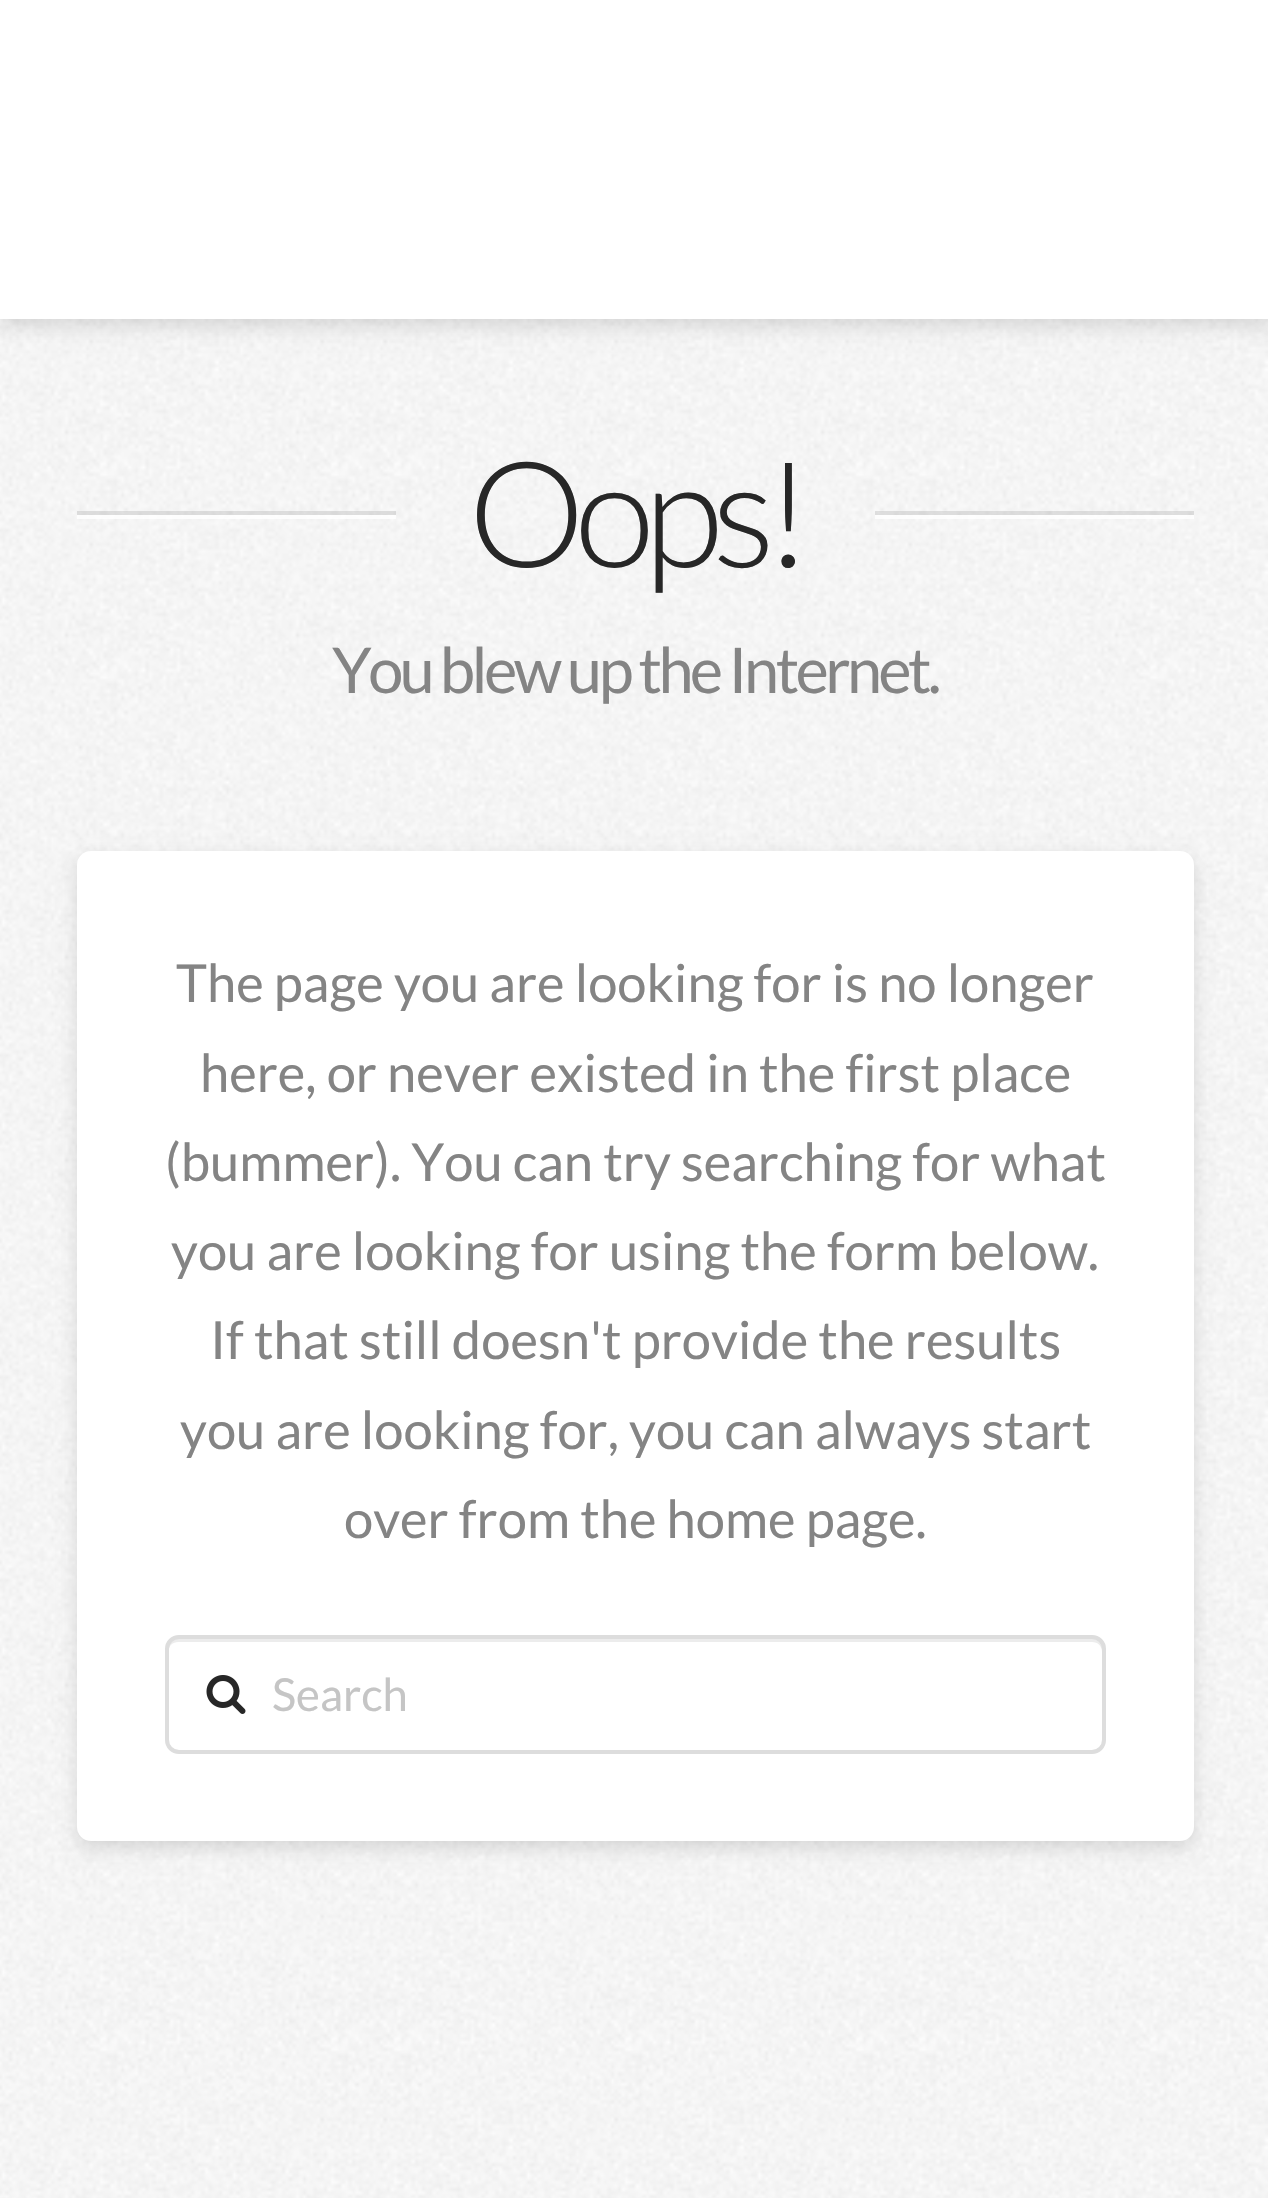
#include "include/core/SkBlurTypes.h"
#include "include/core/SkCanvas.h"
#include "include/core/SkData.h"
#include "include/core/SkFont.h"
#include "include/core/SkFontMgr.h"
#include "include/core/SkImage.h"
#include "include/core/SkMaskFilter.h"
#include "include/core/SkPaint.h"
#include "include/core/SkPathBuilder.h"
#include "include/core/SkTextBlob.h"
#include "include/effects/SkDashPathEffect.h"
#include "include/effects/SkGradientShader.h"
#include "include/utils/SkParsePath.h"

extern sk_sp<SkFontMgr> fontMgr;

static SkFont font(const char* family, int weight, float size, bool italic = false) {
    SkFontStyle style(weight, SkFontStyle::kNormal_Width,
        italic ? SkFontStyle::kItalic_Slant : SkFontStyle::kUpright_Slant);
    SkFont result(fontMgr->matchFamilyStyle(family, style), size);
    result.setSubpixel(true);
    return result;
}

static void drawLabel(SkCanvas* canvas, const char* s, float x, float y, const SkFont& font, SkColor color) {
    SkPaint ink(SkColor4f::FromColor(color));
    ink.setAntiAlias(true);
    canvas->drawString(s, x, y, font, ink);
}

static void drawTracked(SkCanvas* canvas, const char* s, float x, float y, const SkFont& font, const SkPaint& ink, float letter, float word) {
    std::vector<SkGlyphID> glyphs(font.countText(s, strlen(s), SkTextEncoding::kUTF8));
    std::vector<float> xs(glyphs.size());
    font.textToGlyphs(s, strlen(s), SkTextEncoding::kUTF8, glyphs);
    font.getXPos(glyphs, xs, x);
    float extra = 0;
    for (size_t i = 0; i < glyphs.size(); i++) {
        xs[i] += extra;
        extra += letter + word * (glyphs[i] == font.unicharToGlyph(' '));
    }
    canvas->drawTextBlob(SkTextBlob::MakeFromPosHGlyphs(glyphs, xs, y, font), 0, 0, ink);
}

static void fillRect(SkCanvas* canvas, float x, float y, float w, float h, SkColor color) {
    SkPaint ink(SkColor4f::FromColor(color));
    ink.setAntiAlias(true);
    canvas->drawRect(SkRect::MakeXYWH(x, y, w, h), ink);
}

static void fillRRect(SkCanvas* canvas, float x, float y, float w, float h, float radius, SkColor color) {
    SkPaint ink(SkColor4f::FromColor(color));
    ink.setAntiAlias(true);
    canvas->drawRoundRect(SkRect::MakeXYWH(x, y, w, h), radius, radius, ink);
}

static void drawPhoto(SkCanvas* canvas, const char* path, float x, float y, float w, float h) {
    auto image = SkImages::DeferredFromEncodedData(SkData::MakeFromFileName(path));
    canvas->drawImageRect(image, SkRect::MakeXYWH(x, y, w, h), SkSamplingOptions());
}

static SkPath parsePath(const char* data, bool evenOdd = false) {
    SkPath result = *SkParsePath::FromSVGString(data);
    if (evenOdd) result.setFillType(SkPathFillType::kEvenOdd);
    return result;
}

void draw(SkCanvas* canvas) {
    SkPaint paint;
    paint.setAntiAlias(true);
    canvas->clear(0xFFFFFFFF);
    drawPhoto(canvas, "assets/img1.png", 0, 319, 1268, 1879);
    paint.setColor(0x21000000);
    paint.setMaskFilter(SkMaskFilter::MakeBlur(kNormal_SkBlurStyle, 9));
    canvas->drawRect(SkRect::MakeXYWH(0, 7, 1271, 319), paint);
    paint.setMaskFilter(nullptr);
    fillRect(canvas, 0, 0, 1268, 319, 0xFFFFFFFF);
    fillRect(canvas, 77, 515, 319, 4, 0xCCFFFFFF);
    fillRect(canvas, 77, 511, 319, 4, 0x1A000000);
    SkFont font1 = font("Lato", 300, 147);
    paint.setColor(0xFF272727);
    drawTracked(canvas, "Oops!", 468, 567, font1, paint, -10.5f, 0);
    fillRect(canvas, 875, 515, 319, 4, 0xCCFFFFFF);
    fillRect(canvas, 875, 511, 319, 4, 0x1A000000);
    SkFont font2 = font("Lato", 400, 63);
    paint.setColor(0xFF848484);
    drawTracked(canvas, "You blew up the Internet.", 332, 693, font2, paint, -3.5f, 0);
    paint.setColor(0x21000000);
    paint.setMaskFilter(SkMaskFilter::MakeBlur(kNormal_SkBlurStyle, 9));
    canvas->drawRoundRect(SkRect::MakeXYWH(77, 858, 1117, 990), 14, 14, paint);
    paint.setMaskFilter(nullptr);
    fillRRect(canvas, 77, 851, 1117, 990, 14, 0xFFFFFFFF);
    SkFont font3 = font("Lato", 400, 52.5f);
    drawLabel(canvas, "The page you are looking for is no longer", 176, 1002, font3, 0xFF848484);
    drawLabel(canvas, "here, or never existed in the first place", 200, 1092, font3, 0xFF848484);
    drawLabel(canvas, "(bummer). You can try searching for what", 165, 1181, font3, 0xFF848484);
    drawLabel(canvas, "you are looking for using the form below.", 171, 1270, font3, 0xFF848484);
    drawLabel(canvas, "If that still doesn't provide the results", 210, 1359, font3, 0xFF848484);
    drawLabel(canvas, "you are looking for, you can always start", 180, 1449, font3, 0xFF848484);
    drawLabel(canvas, "over from the home page.", 344, 1538, font3, 0xFF848484);
    paint.setColor(0xFFECECEC);
    canvas->drawPath(parsePath("M178 1642H1092C1098 1642 1102 1646 1102 1652V1744C1103 1742 1103 1741 1103 1739V1649C1103 1643 1098 1638 1092 1638H179C173 1638 168 1643 168 1649V1652C168 1646 173 1642 178 1642Z"), paint);
    paint.setStroke(true);
    paint.setStrokeWidth(4);
    paint.setColor(0xFFDDDDDD);
    canvas->drawRoundRect(SkRect::MakeXYWH(167, 1637, 937, 115), 12, 12, paint);
    drawPhoto(canvas, "assets/img2.png", 206, 1675, 40, 39);
    SkFont font4 = font("Lato", 400, 45.5f);
    drawLabel(canvas, "Search", 272, 1711, font4, 0xFFC5C5C5);
}
